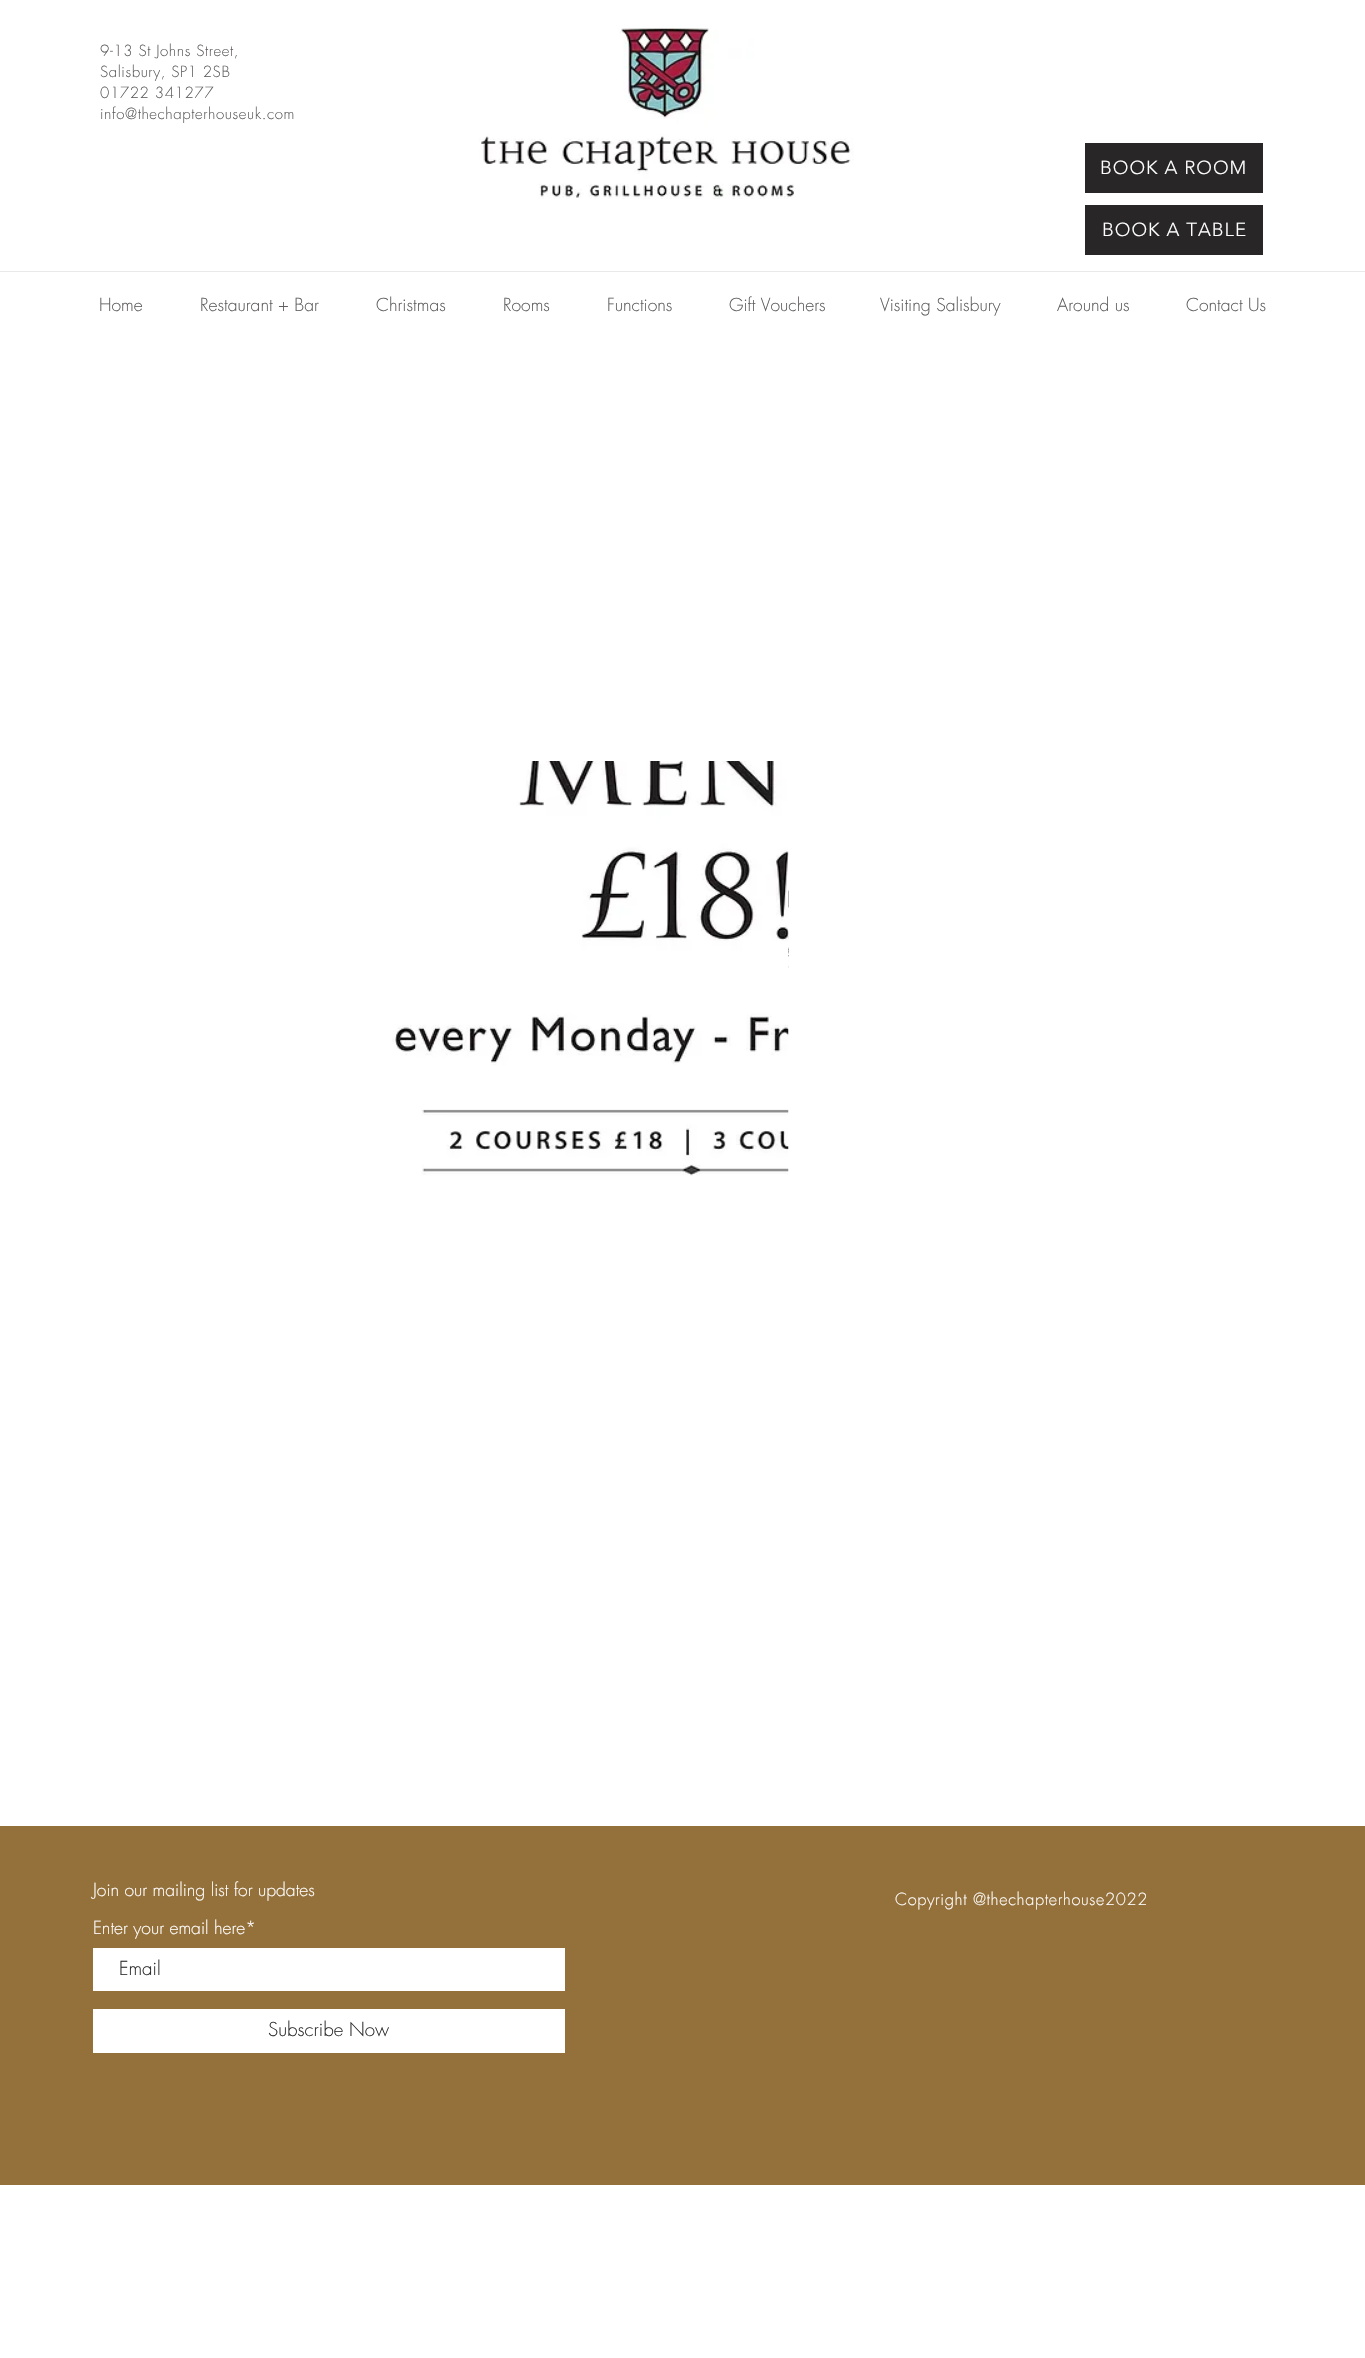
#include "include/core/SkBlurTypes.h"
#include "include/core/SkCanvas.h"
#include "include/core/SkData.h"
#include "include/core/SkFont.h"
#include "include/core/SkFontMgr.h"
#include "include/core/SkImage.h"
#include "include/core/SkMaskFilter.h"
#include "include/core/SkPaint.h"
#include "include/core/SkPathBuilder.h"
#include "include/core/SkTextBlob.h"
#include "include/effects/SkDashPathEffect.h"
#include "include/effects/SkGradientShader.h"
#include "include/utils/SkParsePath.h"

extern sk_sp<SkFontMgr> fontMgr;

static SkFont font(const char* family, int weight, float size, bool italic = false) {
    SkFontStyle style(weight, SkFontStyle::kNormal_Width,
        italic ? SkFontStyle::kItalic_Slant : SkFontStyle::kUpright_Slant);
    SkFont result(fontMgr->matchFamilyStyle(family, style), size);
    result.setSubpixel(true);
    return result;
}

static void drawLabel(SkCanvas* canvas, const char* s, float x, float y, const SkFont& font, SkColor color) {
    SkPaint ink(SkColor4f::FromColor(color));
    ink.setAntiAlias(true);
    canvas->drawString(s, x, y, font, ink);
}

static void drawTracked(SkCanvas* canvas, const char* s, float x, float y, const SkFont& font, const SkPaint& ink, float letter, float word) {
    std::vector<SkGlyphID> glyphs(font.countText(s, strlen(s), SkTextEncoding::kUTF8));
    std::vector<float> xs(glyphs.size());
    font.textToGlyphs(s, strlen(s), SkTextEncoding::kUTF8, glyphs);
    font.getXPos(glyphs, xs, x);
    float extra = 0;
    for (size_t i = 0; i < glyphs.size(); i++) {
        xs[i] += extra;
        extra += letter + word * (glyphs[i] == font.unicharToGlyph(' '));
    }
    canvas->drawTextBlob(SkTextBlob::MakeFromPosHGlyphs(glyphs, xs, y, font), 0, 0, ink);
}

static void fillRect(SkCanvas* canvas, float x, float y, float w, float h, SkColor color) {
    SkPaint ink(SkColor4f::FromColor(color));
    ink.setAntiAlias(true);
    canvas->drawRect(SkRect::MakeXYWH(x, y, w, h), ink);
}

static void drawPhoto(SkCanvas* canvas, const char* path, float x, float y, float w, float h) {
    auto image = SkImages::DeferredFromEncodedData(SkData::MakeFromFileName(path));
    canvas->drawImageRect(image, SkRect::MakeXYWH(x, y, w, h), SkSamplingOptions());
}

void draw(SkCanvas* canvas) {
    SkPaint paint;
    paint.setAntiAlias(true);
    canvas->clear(0xFFFFFFFF);
    SkFont font1 = font("futura", 300, 15);
    paint.setColor(0xFF605E5E);
    drawTracked(canvas, "9-13 St Johns Street,", 100, 56, font1, paint, 0.6f, 0);
    drawTracked(canvas, "Salisbury, SP1 2SB", 100, 77, font1, paint, 0.6f, 0);
    drawTracked(canvas, "01722 341277", 100, 98, font1, paint, 0.6f, 0);
    drawTracked(canvas, "info@thechapterhouseuk.com", 100, 119, font1, paint, 0.6f, 0);
    drawPhoto(canvas, "assets/img1.png", 479, 28, 375, 171);
    fillRect(canvas, 1085, 143, 178, 50, 0xFF282626);
    SkFont font2 = font("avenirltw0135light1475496", 300, 18.75f);
    paint.setColor(0xFFFFFFFF);
    drawTracked(canvas, "BOOK A ROOM", 1100, 174, font2, paint, 1, 0);
    fillRect(canvas, 1085, 205, 178, 50, 0xFF282626);
    drawTracked(canvas, "BOOK A TABLE", 1102, 236, font2, paint, 1, 0);
    fillRect(canvas, 0, 271, 1365, 1, 0xFFE9E9E9);
    SkFont font3 = font("futura", 300, 17.5f);
    drawLabel(canvas, "Home", 99, 311, font3, 0xFF605E5E);
    drawLabel(canvas, "Restaurant + Bar", 200, 311, font3, 0xFF605E5E);
    drawLabel(canvas, "Christmas", 376, 311, font3, 0xFF605E5E);
    drawLabel(canvas, "Rooms", 503, 311, font3, 0xFF605E5E);
    drawLabel(canvas, "Functions", 607, 311, font3, 0xFF605E5E);
    drawLabel(canvas, "Gift Vouchers", 729, 311, font3, 0xFF605E5E);
    drawLabel(canvas, "Visiting Salisbury", 880, 311, font3, 0xFF605E5E);
    drawLabel(canvas, "Around us", 1057, 311, font3, 0xFF605E5E);
    drawLabel(canvas, "Contact Us", 1186, 311, font3, 0xFF605E5E);
    drawPhoto(canvas, "assets/img3.png", 788, 761, 1, 210);
    drawPhoto(canvas, "assets/img2.png", 377, 761, 412, 415);
    fillRect(canvas, 0, 1826, 1365, 359, 0xFF94703A);
    drawLabel(canvas, "Join our mailing list for updates", 93, 1896, font3, 0xFFFFFFFF);
    drawLabel(canvas, "Enter your email here*", 93, 1934, font3, 0xFFFFFFFF);
    fillRect(canvas, 93, 1948, 472, 43, 0xFFFFFFFF);
    SkFont font4 = font("futura", 300, 18.75f);
    drawLabel(canvas, "Email", 119, 1975, font4, 0xFF2F2E2E);
    fillRect(canvas, 93, 2009, 472, 44, 0xFFFFFFFF);
    drawLabel(canvas, "Subscribe Now", 268, 2036, font4, 0xFF2F2E2E);
    SkFont font5 = font("futura", 300, 16.25f);
    drawTracked(canvas, "Copyright @thechapterhouse2022", 895, 1905, font5, paint, 0.65f, 0);
}
